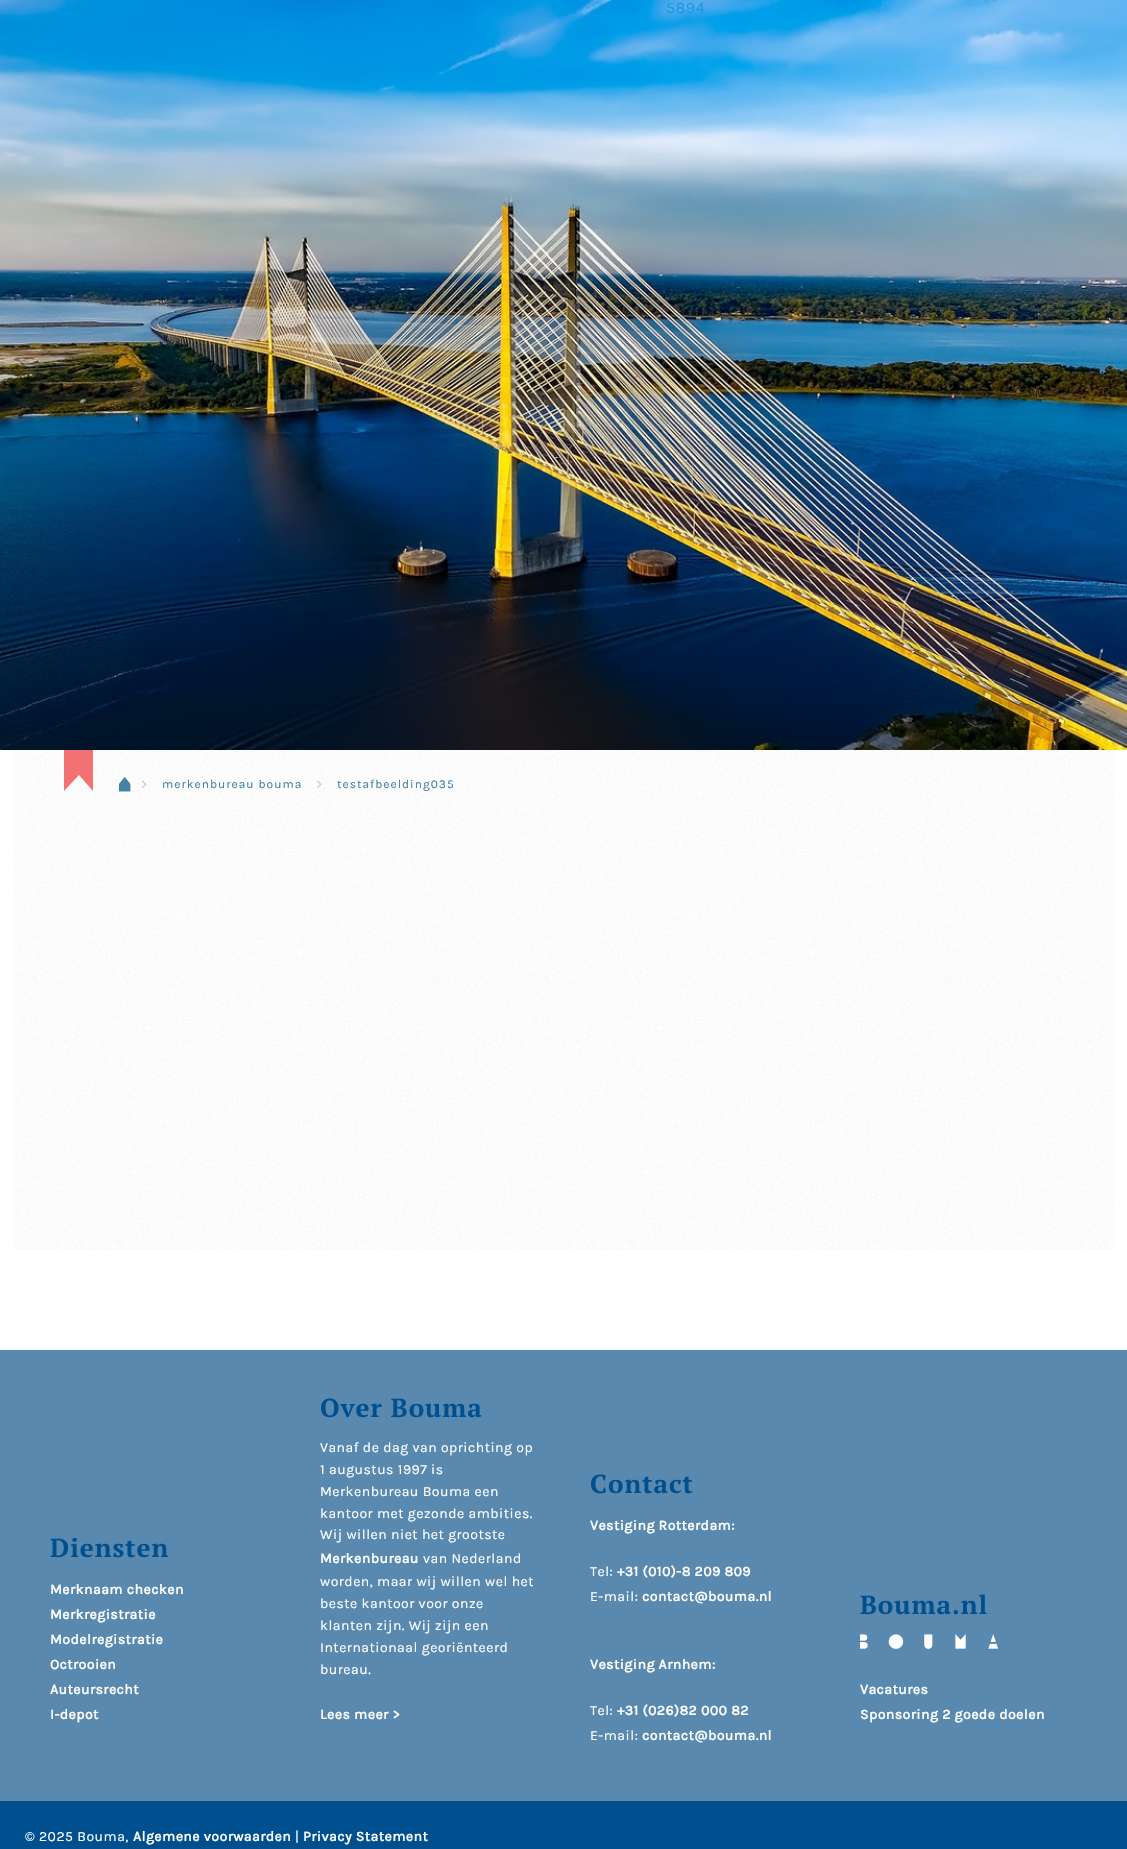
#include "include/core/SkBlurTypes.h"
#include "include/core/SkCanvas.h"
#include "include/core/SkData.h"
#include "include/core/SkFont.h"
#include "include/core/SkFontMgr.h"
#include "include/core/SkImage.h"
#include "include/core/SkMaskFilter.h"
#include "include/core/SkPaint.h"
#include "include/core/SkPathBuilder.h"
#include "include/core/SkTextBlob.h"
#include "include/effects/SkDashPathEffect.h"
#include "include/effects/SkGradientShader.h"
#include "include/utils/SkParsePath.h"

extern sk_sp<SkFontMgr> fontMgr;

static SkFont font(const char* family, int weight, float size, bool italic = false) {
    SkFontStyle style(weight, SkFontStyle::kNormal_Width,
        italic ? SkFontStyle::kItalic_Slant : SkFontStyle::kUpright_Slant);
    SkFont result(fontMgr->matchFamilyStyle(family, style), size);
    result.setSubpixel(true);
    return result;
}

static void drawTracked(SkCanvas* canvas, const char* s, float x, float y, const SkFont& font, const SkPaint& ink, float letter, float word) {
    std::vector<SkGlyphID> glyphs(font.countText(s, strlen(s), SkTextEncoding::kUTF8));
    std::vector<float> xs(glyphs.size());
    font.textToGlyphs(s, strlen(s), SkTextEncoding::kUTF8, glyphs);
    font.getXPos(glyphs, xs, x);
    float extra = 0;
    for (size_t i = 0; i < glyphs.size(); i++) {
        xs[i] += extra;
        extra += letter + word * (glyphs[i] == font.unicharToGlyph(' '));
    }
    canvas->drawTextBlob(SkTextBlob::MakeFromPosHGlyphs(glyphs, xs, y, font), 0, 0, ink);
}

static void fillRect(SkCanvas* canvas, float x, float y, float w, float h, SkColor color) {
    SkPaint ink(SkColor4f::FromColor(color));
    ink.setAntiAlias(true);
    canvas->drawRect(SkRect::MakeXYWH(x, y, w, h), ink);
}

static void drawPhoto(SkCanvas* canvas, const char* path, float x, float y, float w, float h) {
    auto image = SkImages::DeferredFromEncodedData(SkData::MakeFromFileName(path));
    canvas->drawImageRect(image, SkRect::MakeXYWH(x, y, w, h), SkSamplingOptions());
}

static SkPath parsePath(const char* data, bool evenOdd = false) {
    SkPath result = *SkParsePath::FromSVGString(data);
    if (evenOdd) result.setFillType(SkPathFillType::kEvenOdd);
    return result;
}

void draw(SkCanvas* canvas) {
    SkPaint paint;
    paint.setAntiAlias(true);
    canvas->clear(0xFFFFFFFF);
    drawPhoto(canvas, "assets/img1.png", 0, 0, 1127, 750);
    SkFont font1 = font("Karla", 400, 16);
    paint.setColor(0xFF179AE5);
    drawTracked(canvas, "5894", 666, 13, font1, paint, 0.5f, 0);
    drawPhoto(canvas, "assets/img2.png", 14, 750, 1100, 500);
    paint.setColor(0xFFF37173);
    canvas->drawPath(parsePath("M93 750H64V791L79 775L93 791Z"), paint);
    drawPhoto(canvas, "assets/img3.png", 119, 776, 12, 16);
    drawPhoto(canvas, "assets/img4.png", 141, 780, 6, 9);
    SkFont font2 = font("Karla", 400, 12);
    paint.setColor(0xFF4582A6);
    drawTracked(canvas, "merkenbureau bouma", 162, 788, font2, paint, 1, 0);
    drawPhoto(canvas, "assets/img5.png", 316, 780, 6, 9);
    drawTracked(canvas, "testafbeelding035", 337, 788, font2, paint, 1, 0);
    fillRect(canvas, 0, 1350, 1127, 451, 0xFF5A89B0);
    SkFont font3 = font("PT Serif", 700, 26);
    paint.setColor(0xFF00508F);
    drawTracked(canvas, "Diensten", 50, 1557, font3, paint, 1, 0);
    SkFont font4 = font("Karla", 700, 14);
    paint.setColor(0xFFFFFFFF);
    drawTracked(canvas, "Merknaam checken", 50, 1594, font4, paint, 0.5f, 0);
    drawTracked(canvas, "Merkregistratie", 50, 1619, font4, paint, 0.5f, 0);
    drawTracked(canvas, "Modelregistratie", 50, 1644, font4, paint, 0.5f, 0);
    drawTracked(canvas, "Octrooien", 50, 1669, font4, paint, 0.5f, 0);
    drawTracked(canvas, "Auteursrecht", 50, 1694, font4, paint, 0.5f, 0);
    drawTracked(canvas, "I-depot", 50, 1719, font4, paint, 0.5f, 0);
    paint.setColor(0xFF00508F);
    drawTracked(canvas, "Over Bouma", 320, 1417, font3, paint, 1, 0);
    SkFont font5 = font("Karla", 400, 14);
    paint.setColor(0xFFFFFFFF);
    drawTracked(canvas, "Vanaf de dag van oprichting op", 320, 1452, font5, paint, 0.5f, 0);
    drawTracked(canvas, "1 augustus 1997 is", 320, 1474, font5, paint, 0.5f, 0);
    drawTracked(canvas, "Merkenbureau Bouma een", 320, 1496, font5, paint, 0.5f, 0);
    drawTracked(canvas, "kantoor met gezonde ambities.", 320, 1518, font5, paint, 0.5f, 0);
    drawTracked(canvas, "Wij willen niet het grootste", 320, 1539, font5, paint, 0.5f, 0);
    drawTracked(canvas, "Merkenbureau", 320, 1563, font4, paint, 0.5f, 0);
    drawTracked(canvas, "van Nederland", 423, 1563, font5, paint, 0.5f, 0);
    drawTracked(canvas, "worden, maar wij willen wel het", 320, 1586, font5, paint, 0.5f, 0);
    drawTracked(canvas, "beste kantoor voor onze", 320, 1608, font5, paint, 0.5f, 0);
    drawTracked(canvas, "klanten zijn. Wij zijn een", 320, 1630, font5, paint, 0.5f, 0);
    drawTracked(canvas, "Internationaal georiënteerd", 320, 1652, font5, paint, 0.5f, 0);
    drawTracked(canvas, "bureau.", 320, 1674, font5, paint, 0.5f, 0);
    drawTracked(canvas, "Lees meer >", 320, 1719, font4, paint, 0.5f, 0);
    paint.setColor(0xFF00508F);
    drawTracked(canvas, "Contact", 590, 1493, font3, paint, 1, 0);
    paint.setColor(0xFFFFFFFF);
    drawTracked(canvas, "Vestiging Rotterdam:", 590, 1530, font4, paint, 0.5f, 0);
    drawTracked(canvas, "Tel:", 590, 1576, font5, paint, 0.5f, 0);
    drawTracked(canvas, "+31 (010)-8 209 809", 617, 1576, font4, paint, 0.5f, 0);
    drawTracked(canvas, "E-mail:", 590, 1601, font5, paint, 0.5f, 0);
    drawTracked(canvas, "contact@bouma.nl", 642, 1601, font4, paint, 0.5f, 0);
    drawTracked(canvas, "Vestiging Arnhem:", 590, 1669, font4, paint, 0.5f, 0);
    drawTracked(canvas, "Tel:", 590, 1715, font5, paint, 0.5f, 0);
    drawTracked(canvas, "+31 (026)82 000 82", 617, 1715, font4, paint, 0.5f, 0);
    drawTracked(canvas, "E-mail:", 590, 1740, font5, paint, 0.5f, 0);
    drawTracked(canvas, "contact@bouma.nl", 642, 1740, font4, paint, 0.5f, 0);
    paint.setColor(0xFF00508F);
    drawTracked(canvas, "Bouma.nl", 860, 1614, font3, paint, 1, 0);
    drawPhoto(canvas, "assets/img6.png", 860, 1634, 138, 15);
    paint.setColor(0xFFFFFFFF);
    drawTracked(canvas, "Vacatures", 860, 1694, font4, paint, 0.5f, 0);
    drawTracked(canvas, "Sponsoring 2 goede doelen", 860, 1719, font4, paint, 0.5f, 0);
    fillRect(canvas, 0, 1801, 1127, 48, 0xFF00508F);
    drawTracked(canvas, "© 2025 Bouma,", 25, 1841, font5, paint, 0.5f, 0);
    drawTracked(canvas, "Algemene voorwaarden", 133, 1841, font4, paint, 0.5f, 0);
    drawTracked(canvas, "|", 295, 1841, font5, paint, 0.5f, 0);
    drawTracked(canvas, "Privacy Statement", 303, 1841, font4, paint, 0.5f, 0);
}
